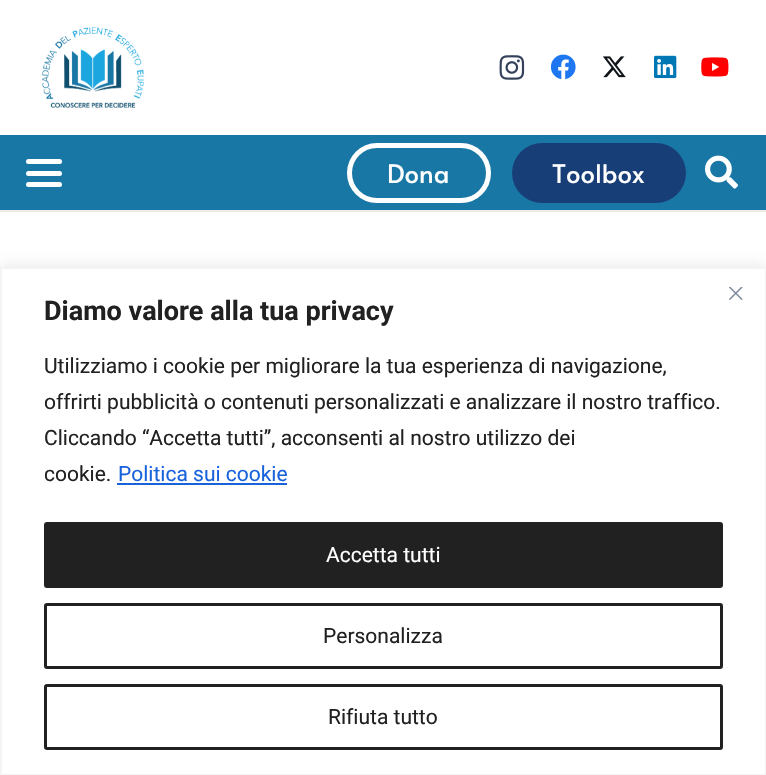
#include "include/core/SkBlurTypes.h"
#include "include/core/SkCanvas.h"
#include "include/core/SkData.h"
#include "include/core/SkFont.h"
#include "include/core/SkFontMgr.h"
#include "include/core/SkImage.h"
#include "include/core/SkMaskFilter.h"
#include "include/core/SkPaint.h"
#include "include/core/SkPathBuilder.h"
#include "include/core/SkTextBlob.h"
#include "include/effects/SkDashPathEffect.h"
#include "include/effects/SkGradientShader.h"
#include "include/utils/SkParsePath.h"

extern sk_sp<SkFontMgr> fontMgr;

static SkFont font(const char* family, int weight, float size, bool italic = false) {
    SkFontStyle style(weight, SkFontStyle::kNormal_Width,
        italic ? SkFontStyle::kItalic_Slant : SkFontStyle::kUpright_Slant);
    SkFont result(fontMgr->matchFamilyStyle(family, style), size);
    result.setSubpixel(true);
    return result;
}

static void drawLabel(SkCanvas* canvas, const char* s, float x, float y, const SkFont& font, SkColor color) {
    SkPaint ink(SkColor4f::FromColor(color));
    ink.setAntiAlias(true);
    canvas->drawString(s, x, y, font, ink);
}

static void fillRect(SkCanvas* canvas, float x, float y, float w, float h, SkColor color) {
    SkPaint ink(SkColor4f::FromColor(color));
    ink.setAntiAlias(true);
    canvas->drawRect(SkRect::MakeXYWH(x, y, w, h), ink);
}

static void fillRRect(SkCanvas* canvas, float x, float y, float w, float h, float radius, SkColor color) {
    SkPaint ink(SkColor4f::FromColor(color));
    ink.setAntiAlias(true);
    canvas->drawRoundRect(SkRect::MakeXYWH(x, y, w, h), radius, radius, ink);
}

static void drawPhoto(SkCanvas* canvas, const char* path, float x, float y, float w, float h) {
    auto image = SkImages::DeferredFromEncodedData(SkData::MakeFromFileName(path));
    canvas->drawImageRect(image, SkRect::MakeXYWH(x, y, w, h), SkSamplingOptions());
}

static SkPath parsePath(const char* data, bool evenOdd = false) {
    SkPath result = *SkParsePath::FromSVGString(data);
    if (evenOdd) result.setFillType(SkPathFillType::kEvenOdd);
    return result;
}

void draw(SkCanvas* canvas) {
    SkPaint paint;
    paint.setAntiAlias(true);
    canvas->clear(0xFFFFFFFF);
    drawPhoto(canvas, "assets/img1.png", 42, 27, 103, 81);
    drawPhoto(canvas, "assets/img2.png", 499, 55, 26, 25);
    drawPhoto(canvas, "assets/img3.png", 550, 54, 26, 26);
    drawPhoto(canvas, "assets/img4.png", 603, 56, 23, 22);
    drawPhoto(canvas, "assets/img5.png", 654, 55, 23, 24);
    drawPhoto(canvas, "assets/img6.png", 701, 57, 28, 20);
    paint.setColor(0xFFEBEBEB);
    canvas->drawPath(parsePath("M0 210V212H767V137H766V210Z"), paint);
    fillRect(canvas, 0, 135, 766, 75, 0xFF1977A6);
    fillRRect(canvas, 26, 171, 36, 5, 2.5f, 0xFFFFFFFF);
    fillRRect(canvas, 26, 159, 36, 5, 2.5f, 0xFFFFFFFF);
    fillRRect(canvas, 26, 182, 36, 5, 2.5f, 0xFFFFFFFF);
    paint.setStroke(true);
    paint.setStrokeWidth(5);
    paint.setColor(0xFFFFFFFF);
    canvas->drawRoundRect(SkRect::MakeXYWH(349.5f, 145.5f, 139, 55), 27.5f, 27.5f, paint);
    SkFont font1 = font("Alata", 400, 25.5f);
    drawLabel(canvas, "Dona", 387, 183, font1, 0xFFFFFFFF);
    fillRRect(canvas, 512, 143, 174, 60, 30, 0xFF183E78);
    drawLabel(canvas, "Toolbox", 552, 183, font1, 0xFFFFFFFF);
    drawPhoto(canvas, "assets/img7.png", 705, 155, 33, 34);
    paint.setStroke(false);
    paint.setColor(0x4DACABAB);
    paint.setMaskFilter(SkMaskFilter::MakeBlur(kNormal_SkBlurStyle, 7.5f));
    canvas->drawRect(SkRect::MakeXYWH(0, 266, 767, 508), paint);
    paint.setMaskFilter(nullptr);
    paint.setColor(0xFFFFFFFF);
    canvas->drawRect(SkRect::MakeXYWH(1, 268, 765, 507), paint);
    paint.setStroke(true);
    paint.setStrokeWidth(2);
    paint.setColor(0xFFF4F4F4);
    canvas->drawRect(SkRect::MakeXYWH(1, 268, 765, 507), paint);
    drawPhoto(canvas, "assets/img8.png", 729, 287, 14, 13);
    SkFont font2 = font("Roboto", 700, 27);
    drawLabel(canvas, "Diamo valore alla tua privacy", 44, 320, font2, 0xFF212121);
    SkFont font3 = font("Roboto", 400, 21);
    drawLabel(canvas, "Utilizziamo i cookie per migliorare la tua esperienza di navigazione,", 44, 373, font3, 0xFF212121);
    drawLabel(canvas, "offrirti pubblicità o contenuti personalizzati e analizzare il nostro traffico.", 44, 409, font3, 0xFF212121);
    drawLabel(canvas, "Cliccando “Accetta tutti”, acconsenti al nostro utilizzo dei", 44, 445, font3, 0xFF212121);
    drawLabel(canvas, "cookie.", 44, 481, font3, 0xFF212121);
    drawLabel(canvas, "Politica sui cookie", 118, 481, font3, 0xFF1863DC);
    fillRect(canvas, 117, 483, 170, 2, 0xFF1863DC);
    paint.setStroke(false);
    paint.setColor(0xFF212121);
    canvas->drawRoundRect(SkRect::MakeXYWH(45.5f, 523.5f, 676, 63), 1.5f, 1.5f, paint);
    paint.setStroke(true);
    paint.setStrokeWidth(3);
    canvas->drawRoundRect(SkRect::MakeXYWH(45.5f, 523.5f, 676, 63), 1.5f, 1.5f, paint);
    drawLabel(canvas, "Accetta tutti", 326, 562, font3, 0xFFFFFFFF);
    canvas->drawRoundRect(SkRect::MakeXYWH(45.5f, 604.5f, 676, 63), 1.5f, 1.5f, paint);
    drawLabel(canvas, "Personalizza", 323, 643, font3, 0xFF212121);
    canvas->drawRoundRect(SkRect::MakeXYWH(45.5f, 685.5f, 676, 63), 1.5f, 1.5f, paint);
    drawLabel(canvas, "Rifiuta tutto", 328, 724, font3, 0xFF212121);
}
